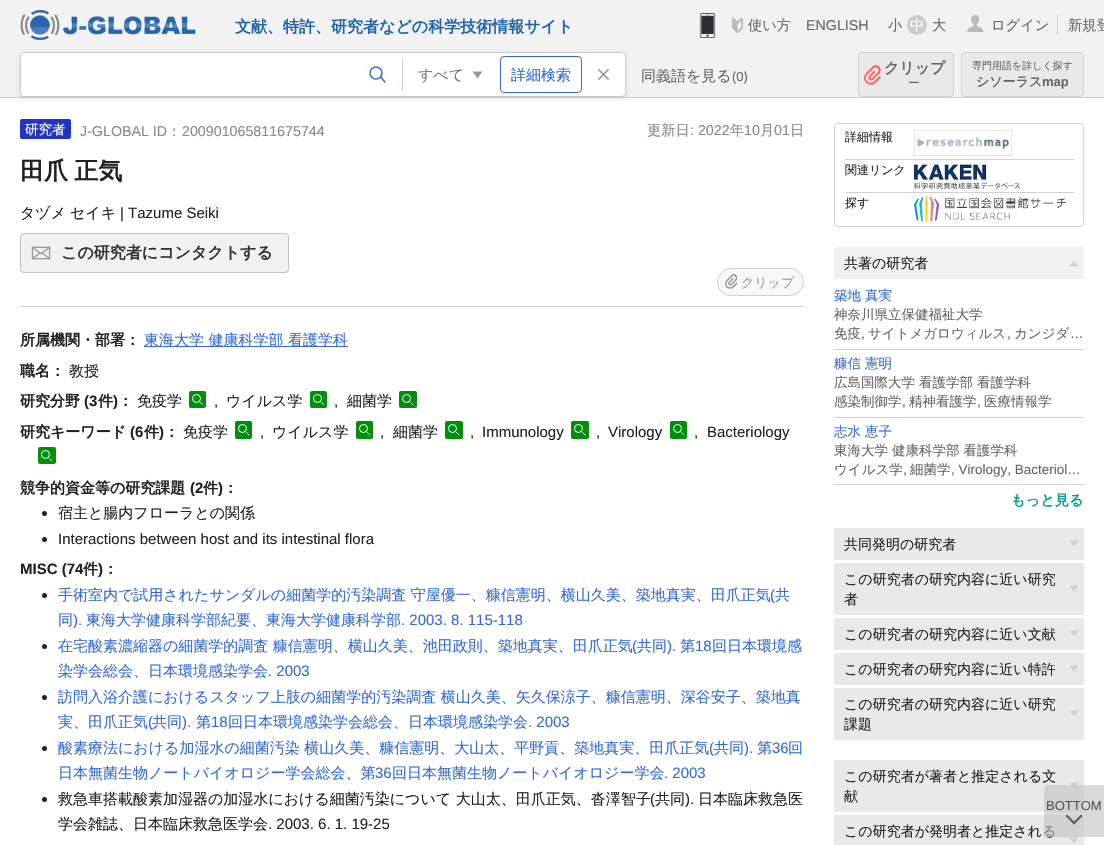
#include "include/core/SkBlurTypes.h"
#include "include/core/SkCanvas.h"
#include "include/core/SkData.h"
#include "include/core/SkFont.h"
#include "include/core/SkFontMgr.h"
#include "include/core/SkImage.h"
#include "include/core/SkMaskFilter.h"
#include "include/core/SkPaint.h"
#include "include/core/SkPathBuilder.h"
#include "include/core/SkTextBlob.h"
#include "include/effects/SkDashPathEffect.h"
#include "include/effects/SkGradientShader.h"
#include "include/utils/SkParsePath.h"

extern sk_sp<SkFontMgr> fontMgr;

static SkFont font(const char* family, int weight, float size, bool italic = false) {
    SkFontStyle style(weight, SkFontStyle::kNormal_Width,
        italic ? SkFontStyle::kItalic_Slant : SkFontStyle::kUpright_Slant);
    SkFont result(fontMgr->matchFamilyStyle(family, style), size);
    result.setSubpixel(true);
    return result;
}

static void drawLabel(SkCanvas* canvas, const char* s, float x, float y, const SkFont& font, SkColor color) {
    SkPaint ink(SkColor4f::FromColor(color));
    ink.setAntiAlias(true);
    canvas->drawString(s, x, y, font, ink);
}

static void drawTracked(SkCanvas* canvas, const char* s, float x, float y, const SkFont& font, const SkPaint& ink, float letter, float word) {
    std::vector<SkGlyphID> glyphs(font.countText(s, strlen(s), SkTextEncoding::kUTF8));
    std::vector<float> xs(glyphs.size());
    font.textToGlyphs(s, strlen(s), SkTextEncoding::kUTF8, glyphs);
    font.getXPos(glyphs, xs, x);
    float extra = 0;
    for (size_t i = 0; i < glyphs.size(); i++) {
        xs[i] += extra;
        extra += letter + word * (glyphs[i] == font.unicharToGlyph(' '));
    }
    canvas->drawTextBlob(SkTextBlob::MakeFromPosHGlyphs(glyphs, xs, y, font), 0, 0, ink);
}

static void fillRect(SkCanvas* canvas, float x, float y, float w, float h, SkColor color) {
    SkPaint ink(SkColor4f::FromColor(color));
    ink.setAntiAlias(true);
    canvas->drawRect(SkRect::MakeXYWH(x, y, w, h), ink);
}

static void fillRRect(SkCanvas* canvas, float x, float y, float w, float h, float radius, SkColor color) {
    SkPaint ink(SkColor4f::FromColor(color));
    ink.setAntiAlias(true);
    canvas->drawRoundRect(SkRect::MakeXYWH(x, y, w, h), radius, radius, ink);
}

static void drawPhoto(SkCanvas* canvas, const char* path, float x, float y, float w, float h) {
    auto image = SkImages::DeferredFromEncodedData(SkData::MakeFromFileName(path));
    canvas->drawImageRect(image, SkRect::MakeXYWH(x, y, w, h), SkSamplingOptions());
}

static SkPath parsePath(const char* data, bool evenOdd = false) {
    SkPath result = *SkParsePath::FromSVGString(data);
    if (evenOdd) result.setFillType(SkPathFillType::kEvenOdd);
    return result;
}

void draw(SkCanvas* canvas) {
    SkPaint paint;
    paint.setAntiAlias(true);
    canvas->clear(0xFFFFFFFF);
    fillRect(canvas, 0, 0, 1104, 97, 0xFFF2F2F2);
    drawPhoto(canvas, "assets/img1.png", 20, 10, 176, 30);
    SkFont font1 = font("WenQuanYi Zen Hei", 700, 16);
    drawLabel(canvas, "文献、特許、研究者などの科学技術情報サイト", 235, 32, font1, 0xFF2064B1);
    drawPhoto(canvas, "assets/img2.png", 699, 13, 17, 25);
    drawPhoto(canvas, "assets/img3.png", 732, 18, 11, 15);
    SkFont font2 = font("WenQuanYi Zen Hei", 500, 14.25f);
    drawLabel(canvas, "使い方", 748, 30, font2, 0xFF666666);
    SkFont font3 = font("Liberation Sans", 400, 14.25f);
    drawLabel(canvas, "ENGLISH", 806, 30, font3, 0xFF666666);
    drawLabel(canvas, "小", 888, 30, font2, 0xFF666666);
    paint.setColor(0xFFCCCCCC);
    canvas->drawCircle(917, 25, 10, paint);
    drawLabel(canvas, "中", 910, 30, font2, 0xFFFFFFFF);
    drawLabel(canvas, "大", 932, 30, font2, 0xFF666666);
    drawPhoto(canvas, "assets/img4.png", 967, 15, 17, 17);
    fillRect(canvas, 1057, 15, 1, 20, 0xFFD1D1D1);
    drawLabel(canvas, "ログイン", 991, 30, font2, 0xFF666666);
    drawLabel(canvas, "新規登", 1068, 30, font2, 0xFF666666);
    fillRect(canvas, 0, 97, 1104, 1, 0xFFD1D1D1);
    paint.setColor(0x1A000000);
    paint.setMaskFilter(SkMaskFilter::MakeBlur(kNormal_SkBlurStyle, 2.5f));
    canvas->drawRoundRect(SkRect::MakeXYWH(20, 54, 606, 45), 4, 4, paint);
    paint.setMaskFilter(nullptr);
    paint.setColor(0xFFFFFFFF);
    canvas->drawRoundRect(SkRect::MakeXYWH(20.5f, 52.5f, 605, 44), 3.5f, 3.5f, paint);
    paint.setStroke(true);
    paint.setStrokeWidth(1);
    paint.setColor(0xFFCCCCCC);
    canvas->drawRoundRect(SkRect::MakeXYWH(20.5f, 52.5f, 605, 44), 3.5f, 3.5f, paint);
    canvas->save();
    canvas->clipPath(parsePath("M24 53H622C623.5 53 625 54.5 625 56V93C625 94.5 623.5 96 622 96H24C22.5 96 21 94.5 21 93V56C21 54.5 22.5 53 24 53Z"), true);
    fillRRect(canvas, 21, 53, 331, 43, 4, 0xFFFFFFFF);
    canvas->restore();
    paint.setStrokeWidth(1.5f);
    paint.setColor(0xFF346AD9);
    canvas->drawCircle(376, 73, 6, paint);
    paint.setStrokeCap(SkPaint::kRound_Cap);
    paint.setStrokeJoin(SkPaint::kRound_Join);
    canvas->drawPath(parsePath("M380.5 77L385 82"), paint);
    paint.setStroke(false);
    paint.setColor(0xFF999999);
    canvas->drawPath(parsePath("M482.5 71.5L477.5 78.5L472.5 71.5Z"), paint);
    fillRect(canvas, 402, 58, 1, 33, 0xFFD1D1D1);
    SkFont font4 = font("WenQuanYi Zen Hei", 500, 15);
    drawLabel(canvas, "すべて", 418, 80, font4, 0xFF777777);
    paint.setStroke(true);
    paint.setStrokeWidth(1);
    paint.setStrokeCap(SkPaint::kButt_Cap);
    paint.setStrokeJoin(SkPaint::kMiter_Join);
    paint.setColor(0xFF346AD9);
    canvas->drawRoundRect(SkRect::MakeXYWH(500.5f, 56.5f, 81, 36), 3.5f, 3.5f, paint);
    drawLabel(canvas, "詳細検索", 511, 80, font4, 0xFF346AD9);
    drawPhoto(canvas, "assets/img5.png", 598, 69, 11, 11);
    drawLabel(canvas, "同義語を見る", 641, 81, font4, 0xFF666666);
    SkFont font5 = font("Liberation Sans", 400, 13);
    drawLabel(canvas, "(0)", 732, 81, font5, 0xFF666666);
    fillRRect(canvas, 858, 52, 96, 45, 4, 0xFFE9E9E9);
    drawPhoto(canvas, "assets/img6.png", 864, 65, 17, 20);
    paint.setColor(0xFFD1D1D1);
    canvas->drawRoundRect(SkRect::MakeXYWH(858.5f, 52.5f, 95, 44), 3.5f, 3.5f, paint);
    SkFont font6 = font("WenQuanYi Zen Hei", 700, 15);
    drawLabel(canvas, "クリップ", 884, 73, font6, 0xFF666666);
    SkFont font7 = font("WenQuanYi Zen Hei", 500, 12);
    drawLabel(canvas, "ー", 908, 87, font7, 0xFF666666);
    paint.setStroke(false);
    paint.setColor(0xFFE9E9E9);
    canvas->drawRoundRect(SkRect::MakeXYWH(961.5f, 52.5f, 122, 44), 3.5f, 3.5f, paint);
    paint.setStroke(true);
    paint.setColor(0xFFD1D1D1);
    canvas->drawRoundRect(SkRect::MakeXYWH(961.5f, 52.5f, 122, 44), 3.5f, 3.5f, paint);
    SkFont font8 = font("WenQuanYi Zen Hei", 500, 10);
    drawLabel(canvas, "専門用語を詳しく探す", 972, 69, font8, 0xFF666666);
    SkFont font9 = font("WenQuanYi Zen Hei", 700, 13);
    drawLabel(canvas, "シソーラス", 976, 86, font9, 0xFF666666);
    SkFont font10 = font("Liberation Sans", 700, 13);
    drawLabel(canvas, "map", 1042, 86, font10, 0xFF666666);
    fillRect(canvas, 20, 306, 784, 1, 0xFFD1D1D1);
    fillRRect(canvas, 20, 119, 51, 20, 2, 0xFF2134C5);
    SkFont font11 = font("WenQuanYi Zen Hei", 500, 13.5f);
    drawLabel(canvas, "研究者", 25, 134, font11, 0xFFFFFFFF);
    drawLabel(canvas, "J-GLOBAL ID", 80, 136, font3, 0xFF888888);
    drawLabel(canvas, "：", 167, 136, font2, 0xFF888888);
    drawLabel(canvas, "200901065811675744", 182, 136, font3, 0xFF888888);
    drawLabel(canvas, "更新日", 647, 135, font2, 0xFF888888);
    drawLabel(canvas, ": 2022", 690, 135, font3, 0xFF888888);
    drawLabel(canvas, "年", 730, 135, font2, 0xFF888888);
    drawLabel(canvas, "10", 744, 135, font3, 0xFF888888);
    drawLabel(canvas, "月", 760, 135, font2, 0xFF888888);
    drawLabel(canvas, "01", 774, 135, font3, 0xFF888888);
    drawLabel(canvas, "日", 790, 135, font2, 0xFF888888);
    SkFont font12 = font("WenQuanYi Zen Hei", 700, 24);
    paint.setStroke(false);
    paint.setColor(0xFF222222);
    drawTracked(canvas, "田爪 正気", 20, 179, font12, paint, 0, -1);
    drawLabel(canvas, "タヅメ", 20, 218, font4, 0xFF222222);
    drawLabel(canvas, "セイキ", 70, 218, font4, 0xFF222222);
    SkFont font13 = font("Liberation Sans", 400, 15);
    drawLabel(canvas, "| Tazume Seiki", 120, 218, font13, 0xFF222222);
    fillRRect(canvas, 20, 233, 269, 40, 4, 0xFFF1F1F1);
    drawPhoto(canvas, "assets/img7.png", 31, 246, 20, 14);
    paint.setStroke(true);
    paint.setColor(0xFFC2C2C2);
    canvas->drawRoundRect(SkRect::MakeXYWH(20.5f, 233.5f, 268, 39), 3.5f, 3.5f, paint);
    drawLabel(canvas, "この研究者にコンタクトする", 61, 258, font1, 0xFF333333);
    fillRRect(canvas, 717, 268, 87, 28, 14, 0xFFF8F8F8);
    drawPhoto(canvas, "assets/img8.png", 725, 274, 12, 15);
    paint.setColor(0xFFD1D1D1);
    canvas->drawRoundRect(SkRect::MakeXYWH(717.5f, 268.5f, 86, 27), 13.5f, 13.5f, paint);
    SkFont font14 = font("WenQuanYi Zen Hei", 500, 13);
    drawLabel(canvas, "クリップ", 741, 287, font14, 0xFF999999);
    drawLabel(canvas, "所属機関・部署：", 20, 345, font6, 0xFF222222);
    fillRect(canvas, 144, 346, 204, 1, 0xFF346AD9);
    drawLabel(canvas, "東海大学 健康科学部 看護学科", 144, 345, font4, 0xFF346AD9);
    drawLabel(canvas, "職名：", 20, 376, font6, 0xFF222222);
    drawLabel(canvas, "教授", 69, 376, font4, 0xFF222222);
    drawLabel(canvas, "研究分野", 20, 406, font6, 0xFF222222);
    SkFont font15 = font("Liberation Sans", 700, 15);
    drawLabel(canvas, "(3", 84, 406, font15, 0xFF222222);
    drawLabel(canvas, "件", 98, 406, font6, 0xFF222222);
    drawLabel(canvas, ")", 113, 406, font15, 0xFF222222);
    drawLabel(canvas, "：", 118, 406, font6, 0xFF222222);
    drawLabel(canvas, "免疫学", 137, 406, font4, 0xFF222222);
    fillRRect(canvas, 189, 391, 17, 17, 2, 0xFF008F0A);
    paint.setColor(0xFFFFFFFF);
    canvas->drawCircle(196.5f, 398.5f, 4, paint);
    canvas->save();
    canvas->clipRect(SkRect::MakeXYWH(192, 394, 11, 11));
    paint.setStrokeCap(SkPaint::kRound_Cap);
    paint.setStrokeJoin(SkPaint::kRound_Join);
    canvas->drawPath(parsePath("M199.5 401.5L203 405"), paint);
    canvas->restore();
    drawLabel(canvas, ",", 214, 406, font13, 0xFF222222);
    drawLabel(canvas, "ウイルス学", 226, 406, font4, 0xFF222222);
    fillRRect(canvas, 310, 391, 17, 17, 2, 0xFF008F0A);
    paint.setStrokeCap(SkPaint::kButt_Cap);
    paint.setStrokeJoin(SkPaint::kMiter_Join);
    canvas->drawCircle(317.5f, 398.5f, 4, paint);
    canvas->save();
    canvas->clipRect(SkRect::MakeXYWH(313, 394, 11, 11));
    paint.setStrokeCap(SkPaint::kRound_Cap);
    paint.setStrokeJoin(SkPaint::kRound_Join);
    canvas->drawPath(parsePath("M320.5 401.5L324 405"), paint);
    canvas->restore();
    drawLabel(canvas, ",", 334, 406, font13, 0xFF222222);
    drawLabel(canvas, "細菌学", 347, 406, font4, 0xFF222222);
    fillRRect(canvas, 399, 391, 18, 17, 2, 0xFF008F0A);
    paint.setStrokeCap(SkPaint::kButt_Cap);
    paint.setStrokeJoin(SkPaint::kMiter_Join);
    canvas->drawCircle(406.5f, 398.5f, 4, paint);
    paint.setStrokeCap(SkPaint::kRound_Cap);
    paint.setStrokeJoin(SkPaint::kRound_Join);
    canvas->drawPath(parsePath("M409.5 401.5L413 405"), paint);
    drawLabel(canvas, "研究キーワード", 20, 437, font6, 0xFF222222);
    drawLabel(canvas, "(6", 130, 437, font15, 0xFF222222);
    drawLabel(canvas, "件", 144, 437, font6, 0xFF222222);
    drawLabel(canvas, ")", 159, 437, font15, 0xFF222222);
    drawLabel(canvas, "：", 164, 437, font6, 0xFF222222);
    drawLabel(canvas, "免疫学", 183, 437, font4, 0xFF222222);
    fillRRect(canvas, 235, 421, 17, 18, 2, 0xFF008F0A);
    paint.setStrokeCap(SkPaint::kButt_Cap);
    paint.setStrokeJoin(SkPaint::kMiter_Join);
    canvas->drawCircle(242.5f, 428.5f, 4, paint);
    paint.setStrokeCap(SkPaint::kRound_Cap);
    paint.setStrokeJoin(SkPaint::kRound_Join);
    canvas->drawPath(parsePath("M245.5 431.5L249 435"), paint);
    drawLabel(canvas, ",", 260, 437, font13, 0xFF222222);
    drawLabel(canvas, "ウイルス学", 272, 437, font4, 0xFF222222);
    fillRRect(canvas, 356, 421, 17, 18, 2, 0xFF008F0A);
    paint.setStrokeCap(SkPaint::kButt_Cap);
    paint.setStrokeJoin(SkPaint::kMiter_Join);
    canvas->drawCircle(363.5f, 428.5f, 4, paint);
    paint.setStrokeCap(SkPaint::kRound_Cap);
    paint.setStrokeJoin(SkPaint::kRound_Join);
    canvas->drawPath(parsePath("M366.5 431.5L370 435"), paint);
    drawLabel(canvas, ",", 380, 437, font13, 0xFF222222);
    drawLabel(canvas, "細菌学", 393, 437, font4, 0xFF222222);
    fillRRect(canvas, 445, 421, 18, 18, 2, 0xFF008F0A);
    paint.setStrokeCap(SkPaint::kButt_Cap);
    paint.setStrokeJoin(SkPaint::kMiter_Join);
    canvas->drawCircle(452.5f, 428.5f, 4, paint);
    paint.setStrokeCap(SkPaint::kRound_Cap);
    paint.setStrokeJoin(SkPaint::kRound_Join);
    canvas->drawPath(parsePath("M455.5 431.5L459 435"), paint);
    drawLabel(canvas, ",", 470, 437, font13, 0xFF222222);
    drawLabel(canvas, "Immunology", 482, 437, font13, 0xFF222222);
    fillRRect(canvas, 571, 421, 18, 18, 2, 0xFF008F0A);
    paint.setStrokeCap(SkPaint::kButt_Cap);
    paint.setStrokeJoin(SkPaint::kMiter_Join);
    canvas->drawCircle(578.5f, 428.5f, 4, paint);
    paint.setStrokeCap(SkPaint::kRound_Cap);
    paint.setStrokeJoin(SkPaint::kRound_Join);
    canvas->drawPath(parsePath("M581.5 431.5L585 435"), paint);
    drawLabel(canvas, ",", 596, 437, font13, 0xFF222222);
    drawLabel(canvas, "Virology", 608, 437, font13, 0xFF222222);
    fillRRect(canvas, 670, 421, 17, 18, 2, 0xFF008F0A);
    paint.setStrokeCap(SkPaint::kButt_Cap);
    paint.setStrokeJoin(SkPaint::kMiter_Join);
    canvas->drawCircle(677.5f, 428.5f, 4, paint);
    paint.setStrokeCap(SkPaint::kRound_Cap);
    paint.setStrokeJoin(SkPaint::kRound_Join);
    canvas->drawPath(parsePath("M680.5 431.5L684 435"), paint);
    drawLabel(canvas, ",", 694, 437, font13, 0xFF222222);
    drawLabel(canvas, "Bacteriology", 707, 437, font13, 0xFF222222);
    fillRRect(canvas, 38, 447, 18, 17, 2, 0xFF008F0A);
    paint.setStrokeCap(SkPaint::kButt_Cap);
    paint.setStrokeJoin(SkPaint::kMiter_Join);
    canvas->drawCircle(45.5f, 454.5f, 4, paint);
    canvas->save();
    canvas->clipRect(SkRect::MakeXYWH(41, 450, 11, 11));
    paint.setStrokeCap(SkPaint::kRound_Cap);
    paint.setStrokeJoin(SkPaint::kRound_Join);
    canvas->drawPath(parsePath("M48.5 457.5L52 461"), paint);
    canvas->restore();
    drawLabel(canvas, "競争的資金等の研究課題", 20, 493, font6, 0xFF222222);
    drawLabel(canvas, "(2", 190, 493, font15, 0xFF222222);
    drawLabel(canvas, "件", 203, 493, font6, 0xFF222222);
    drawLabel(canvas, ")", 218, 493, font15, 0xFF222222);
    drawLabel(canvas, "：", 223, 493, font6, 0xFF222222);
    paint.setStroke(false);
    paint.setColor(0xFF222222);
    canvas->drawCircle(44.5f, 513.5f, 2.5f, paint);
    drawLabel(canvas, "宿主と腸内フローラとの関係", 58, 518, font4, 0xFF222222);
    canvas->drawCircle(44.5f, 539.5f, 2.5f, paint);
    drawLabel(canvas, "Interactions between host and its intestinal flora", 58, 544, font13, 0xFF222222);
    drawLabel(canvas, "MISC (74", 20, 574, font15, 0xFF222222);
    drawLabel(canvas, "件", 83, 574, font6, 0xFF222222);
    drawLabel(canvas, ")", 98, 574, font15, 0xFF222222);
    drawLabel(canvas, "：", 103, 574, font6, 0xFF222222);
    canvas->drawCircle(44.5f, 595.5f, 2.5f, paint);
    drawLabel(canvas, "手術室内で試用されたサンダルの細菌学的汚染調査 守屋優一、糠信憲明、横山久美、築地真実、田爪正気", 58, 600, font4, 0xFF346AD9);
    drawLabel(canvas, "(", 770, 600, font13, 0xFF346AD9);
    drawLabel(canvas, "共", 775, 600, font4, 0xFF346AD9);
    drawLabel(canvas, "同", 58, 625, font4, 0xFF346AD9);
    drawLabel(canvas, ").", 73, 625, font13, 0xFF346AD9);
    drawLabel(canvas, "東海大学健康科学部紀要、東海大学健康科学部", 86, 625, font4, 0xFF346AD9);
    drawLabel(canvas, ". 2003. 8. 115-118", 401, 625, font13, 0xFF346AD9);
    canvas->drawCircle(44.5f, 646.5f, 2.5f, paint);
    drawLabel(canvas, "在宅酸素濃縮器の細菌学的調査 糠信憲明、横山久美、池田政則、築地真実、田爪正気", 58, 651, font4, 0xFF346AD9);
    drawLabel(canvas, "(", 632, 651, font13, 0xFF346AD9);
    drawLabel(canvas, "共同", 637, 651, font4, 0xFF346AD9);
    drawLabel(canvas, ").", 667, 651, font13, 0xFF346AD9);
    drawLabel(canvas, "第", 680, 651, font4, 0xFF346AD9);
    drawLabel(canvas, "18", 695, 651, font13, 0xFF346AD9);
    drawLabel(canvas, "回日本環境感", 712, 651, font4, 0xFF346AD9);
    drawLabel(canvas, "染学会総会、日本環境感染学会", 58, 676, font4, 0xFF346AD9);
    drawLabel(canvas, ". 2003", 268, 676, font13, 0xFF346AD9);
    canvas->drawCircle(44.5f, 697.5f, 2.5f, paint);
    drawLabel(canvas, "訪問入浴介護におけるスタッフ上肢の細菌学的汚染調査 横山久美、矢久保涼子、糠信憲明、深谷安子、築地真", 58, 702, font4, 0xFF346AD9);
    drawLabel(canvas, "実、田爪正気", 58, 727, font4, 0xFF346AD9);
    drawLabel(canvas, "(", 148, 727, font13, 0xFF346AD9);
    drawLabel(canvas, "共同", 152, 727, font4, 0xFF346AD9);
    drawLabel(canvas, ").", 182, 727, font13, 0xFF346AD9);
    drawLabel(canvas, "第", 196, 727, font4, 0xFF346AD9);
    drawLabel(canvas, "18", 211, 727, font13, 0xFF346AD9);
    drawLabel(canvas, "回日本環境感染学会総会、日本環境感染学会", 228, 727, font4, 0xFF346AD9);
    drawLabel(canvas, ". 2003", 528, 727, font13, 0xFF346AD9);
    canvas->drawCircle(44.5f, 748.5f, 2.5f, paint);
    drawLabel(canvas, "酸素療法における加湿水の細菌汚染 横山久美、糠信憲明、大山太、平野貢、築地真実、田爪正気", 58, 753, font4, 0xFF346AD9);
    drawLabel(canvas, "(", 709, 753, font13, 0xFF346AD9);
    drawLabel(canvas, "共同", 714, 753, font4, 0xFF346AD9);
    drawLabel(canvas, ").", 744, 753, font13, 0xFF346AD9);
    drawLabel(canvas, "第", 757, 753, font4, 0xFF346AD9);
    drawLabel(canvas, "36", 772, 753, font13, 0xFF346AD9);
    drawLabel(canvas, "回", 788, 753, font4, 0xFF346AD9);
    drawLabel(canvas, "日本無菌生物ノートバイオロジー学会総会、第", 58, 778, font4, 0xFF346AD9);
    drawLabel(canvas, "36", 375, 778, font13, 0xFF346AD9);
    drawLabel(canvas, "回日本無菌生物ノートバイオロジー学会", 392, 778, font4, 0xFF346AD9);
    drawLabel(canvas, ". 2003", 664, 778, font13, 0xFF346AD9);
    canvas->drawCircle(44.5f, 799.5f, 2.5f, paint);
    drawLabel(canvas, "救急車搭載酸素加湿器の加湿水における細菌汚染について 大山太、田爪正気、沓澤智子", 58, 804, font4, 0xFF222222);
    drawLabel(canvas, "(", 650, 804, font13, 0xFF222222);
    drawLabel(canvas, "共同", 655, 804, font4, 0xFF222222);
    drawLabel(canvas, ").", 685, 804, font13, 0xFF222222);
    drawLabel(canvas, "日本臨床救急医", 698, 804, font4, 0xFF222222);
    drawLabel(canvas, "学会雑誌、日本臨床救急医学会", 58, 829, font4, 0xFF222222);
    drawLabel(canvas, ". 2003. 6. 1. 19-25", 268, 829, font13, 0xFF222222);
    paint.setStroke(true);
    paint.setStrokeCap(SkPaint::kButt_Cap);
    paint.setStrokeJoin(SkPaint::kMiter_Join);
    paint.setColor(0xFFD1D1D1);
    canvas->drawRoundRect(SkRect::MakeXYWH(834.5f, 123.5f, 249, 103), 3.5f, 3.5f, paint);
    fillRect(canvas, 845, 159, 229, 1, 0xFFD1D1D1);
    drawLabel(canvas, "詳細情報", 845, 141, font7, 0xFF222222);
    drawPhoto(canvas, "assets/img9.png", 914, 130, 98, 26);
    fillRect(canvas, 845, 192, 229, 1, 0xFFD1D1D1);
    drawLabel(canvas, "関連リンク", 845, 174, font7, 0xFF222222);
    drawPhoto(canvas, "assets/img10.png", 914, 163, 106, 26);
    drawLabel(canvas, "探す", 845, 207, font7, 0xFF222222);
    drawPhoto(canvas, "assets/img11.png", 914, 196, 152, 26);
    fillRect(canvas, 834, 247, 250, 32, 0xFFF1F1F1);
    paint.setStroke(false);
    canvas->drawPath(parsePath("M1069.5 266.5L1074 260.5L1078.5 266.5Z"), paint);
    SkFont font16 = font("WenQuanYi Zen Hei", 500, 14);
    drawLabel(canvas, "共著の研究者", 844, 268, font16, 0xFF222222);
    fillRect(canvas, 834, 349, 250, 1, 0xFFD1D1D1);
    drawLabel(canvas, "築地 真実", 834, 300, font11, 0xFF346AD9);
    drawLabel(canvas, "神奈川県立保健福祉大学", 834, 319, font11, 0xFF666666);
    drawLabel(canvas, "免疫", 834, 338, font11, 0xFF666666);
    SkFont font17 = font("Liberation Sans", 400, 13.5f);
    drawLabel(canvas, ",", 861, 338, font17, 0xFF666666);
    drawLabel(canvas, "サイトメガロウィルス", 868, 338, font11, 0xFF666666);
    drawLabel(canvas, ",", 1007, 338, font17, 0xFF666666);
    drawLabel(canvas, "カンジダ", 1014, 338, font11, 0xFF666666);
    drawLabel(canvas, "…", 1070, 338, font17, 0xFF666666);
    fillRect(canvas, 834, 417, 250, 1, 0xFFD1D1D1);
    drawLabel(canvas, "糠信 憲明", 834, 368, font11, 0xFF346AD9);
    drawLabel(canvas, "広島国際大学 看護学部 看護学科", 834, 387, font11, 0xFF666666);
    drawLabel(canvas, "感染制御学", 834, 406, font11, 0xFF666666);
    drawLabel(canvas, ",", 902, 406, font17, 0xFF666666);
    drawLabel(canvas, "精神看護学", 909, 406, font11, 0xFF666666);
    drawLabel(canvas, ",", 977, 406, font17, 0xFF666666);
    drawLabel(canvas, "医療情報学", 984, 406, font11, 0xFF666666);
    fillRect(canvas, 834, 484, 250, 1, 0xFFD1D1D1);
    drawLabel(canvas, "志水 恵子", 834, 436, font11, 0xFF346AD9);
    drawLabel(canvas, "東海大学 健康科学部 看護学科", 834, 455, font11, 0xFF666666);
    drawLabel(canvas, "ウイルス学", 834, 474, font11, 0xFF666666);
    drawLabel(canvas, ",", 903, 474, font17, 0xFF666666);
    drawLabel(canvas, "細菌学", 910, 474, font11, 0xFF666666);
    drawLabel(canvas, ", Virology, Bacteriol…", 951, 474, font17, 0xFF666666);
    SkFont font18 = font("WenQuanYi Zen Hei", 700, 14.25f);
    drawLabel(canvas, "もっと見る", 1011, 505, font18, 0xFF02A28F);
    fillRect(canvas, 834, 528, 250, 32, 0xFFE9E9E9);
    canvas->drawPath(parsePath("M1078.5 540.5L1074 546.5L1069.5 540.5Z"), paint);
    drawLabel(canvas, "共同発明の研究者", 844, 549, font16, 0xFF222222);
    fillRect(canvas, 834, 563, 250, 52, 0xFFE9E9E9);
    canvas->drawPath(parsePath("M1078.5 585.5L1074 591.5L1069.5 585.5Z"), paint);
    drawLabel(canvas, "この研究者の研究内容に近い研究", 844, 584, font16, 0xFF222222);
    drawLabel(canvas, "者", 844, 604, font16, 0xFF222222);
    fillRect(canvas, 834, 618, 250, 32, 0xFFE9E9E9);
    canvas->drawPath(parsePath("M1078.5 630.5L1074 636.5L1069.5 630.5Z"), paint);
    drawLabel(canvas, "この研究者の研究内容に近い文献", 844, 639, font16, 0xFF222222);
    fillRect(canvas, 834, 653, 250, 32, 0xFFE9E9E9);
    canvas->drawPath(parsePath("M1078.5 665.5L1074 671.5L1069.5 665.5Z"), paint);
    drawLabel(canvas, "この研究者の研究内容に近い特許", 844, 674, font16, 0xFF222222);
    fillRect(canvas, 834, 688, 250, 52, 0xFFE9E9E9);
    canvas->drawPath(parsePath("M1078.5 710.5L1074 716.5L1069.5 710.5Z"), paint);
    drawLabel(canvas, "この研究者の研究内容に近い研究", 844, 709, font16, 0xFF222222);
    drawLabel(canvas, "課題", 844, 729, font16, 0xFF222222);
    fillRect(canvas, 834, 760, 250, 52, 0xFFE9E9E9);
    canvas->drawPath(parsePath("M1078.5 782.5L1074 788.5L1069.5 782.5Z"), paint);
    drawLabel(canvas, "この研究者が著者と推定される文", 844, 781, font16, 0xFF222222);
    drawLabel(canvas, "献", 844, 801, font16, 0xFF222222);
    fillRect(canvas, 834, 815, 250, 30, 0xFFE9E9E9);
    canvas->drawPath(parsePath("M1078.5 837.5L1074 843.5L1069.5 837.5Z"), paint);
    drawLabel(canvas, "この研究者が発明者と推定される", 844, 836, font16, 0xFF222222);
    paint.setColor(0x99C2C2C2);
    canvas->drawPath(parsePath("M1048 785H1104V837H1044V789C1044 787 1046 785 1048 785Z"), paint);
    drawLabel(canvas, "BOTTOM", 1046, 810, font5, 0xFF555555);
    paint.setColor(0xFF5D5D5D);
    canvas->drawPath(parsePath("M1072.5 823L1081 814.5L1082.5 816L1074 824.5Z"), paint);
    canvas->drawPath(parsePath("M1065.5 816L1067 814.5L1075.5 823L1074 824.5Z"), paint);
}
